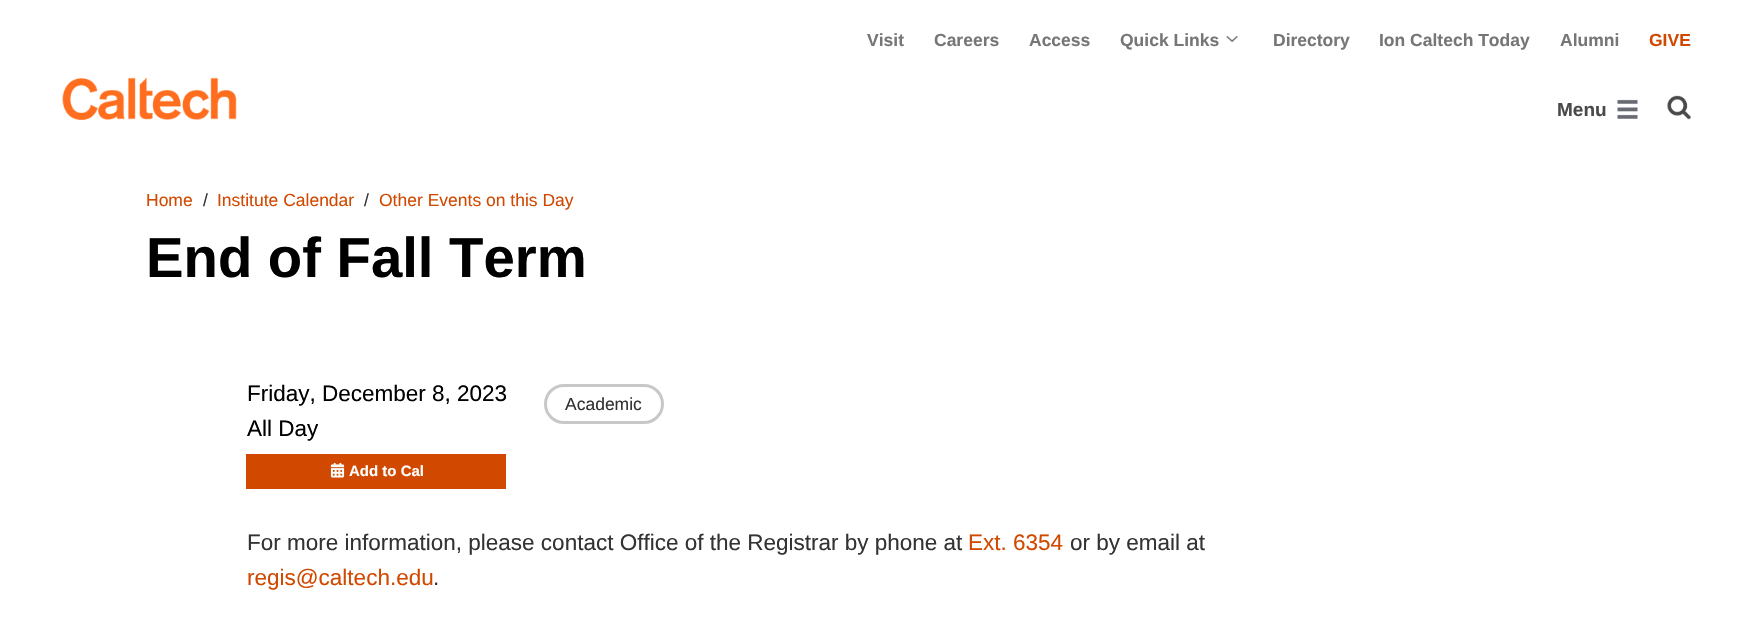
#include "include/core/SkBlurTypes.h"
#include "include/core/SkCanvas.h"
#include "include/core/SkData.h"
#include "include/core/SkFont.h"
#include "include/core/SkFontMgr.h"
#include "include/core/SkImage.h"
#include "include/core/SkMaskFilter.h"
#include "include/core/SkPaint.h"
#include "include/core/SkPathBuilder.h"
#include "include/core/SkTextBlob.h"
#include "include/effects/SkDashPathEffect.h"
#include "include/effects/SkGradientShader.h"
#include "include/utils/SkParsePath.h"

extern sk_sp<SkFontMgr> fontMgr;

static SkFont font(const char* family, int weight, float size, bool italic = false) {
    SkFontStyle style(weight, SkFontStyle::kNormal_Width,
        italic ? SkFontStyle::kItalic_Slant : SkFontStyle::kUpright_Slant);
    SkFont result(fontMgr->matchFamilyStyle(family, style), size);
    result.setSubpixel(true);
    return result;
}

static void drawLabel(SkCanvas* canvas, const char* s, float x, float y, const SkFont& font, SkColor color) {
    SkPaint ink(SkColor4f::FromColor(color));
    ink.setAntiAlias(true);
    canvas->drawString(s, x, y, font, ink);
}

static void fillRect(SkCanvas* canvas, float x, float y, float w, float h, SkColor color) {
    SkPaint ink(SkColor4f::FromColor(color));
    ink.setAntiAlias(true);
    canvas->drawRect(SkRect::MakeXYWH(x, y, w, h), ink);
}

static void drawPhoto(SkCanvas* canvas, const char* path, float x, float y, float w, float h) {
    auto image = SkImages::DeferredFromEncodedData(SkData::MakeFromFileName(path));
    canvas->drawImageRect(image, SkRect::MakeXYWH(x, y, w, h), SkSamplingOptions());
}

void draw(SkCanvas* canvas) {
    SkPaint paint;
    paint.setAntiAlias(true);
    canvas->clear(0xFFFFFFFF);
    SkFont font1 = font("Liberation Sans", 700, 17.5f);
    drawLabel(canvas, "Visit", 867, 46, font1, 0xFF767676);
    drawLabel(canvas, "Careers", 934, 46, font1, 0xFF767676);
    drawLabel(canvas, "Access", 1029, 46, font1, 0xFF767676);
    drawLabel(canvas, "Quick Links", 1120, 46, font1, 0xFF767676);
    drawPhoto(canvas, "assets/img1.png", 1226, 36, 12, 7);
    drawLabel(canvas, "Directory", 1273, 46, font1, 0xFF767676);
    drawLabel(canvas, "Ion Caltech Today", 1379, 46, font1, 0xFF767676);
    drawLabel(canvas, "Alumni", 1560, 46, font1, 0xFF767676);
    drawLabel(canvas, "GIVE", 1649, 46, font1, 0xFFD14900);
    drawPhoto(canvas, "assets/img2.png", 62, 77, 175, 43);
    SkFont font2 = font("Liberation Sans", 700, 19);
    drawLabel(canvas, "Menu", 1557, 116, font2, 0xFF4A4A4A);
    drawPhoto(canvas, "assets/img3.png", 1617, 99, 21, 20);
    drawPhoto(canvas, "assets/img4.png", 1667, 95, 24, 25);
    SkFont font3 = font("Liberation Sans", 400, 17.5f);
    drawLabel(canvas, "Home", 146, 206, font3, 0xFFD14900);
    drawLabel(canvas, "/", 203, 206, font3, 0xFF333333);
    drawLabel(canvas, "Institute Calendar", 217, 206, font3, 0xFFD14900);
    drawLabel(canvas, "/", 364, 206, font3, 0xFF333333);
    drawLabel(canvas, "Other Events on this Day", 379, 206, font3, 0xFFD14900);
    SkFont font4 = font("Liberation Sans", 700, 56.25f);
    drawLabel(canvas, "End of Fall Term", 146, 277, font4, 0xFF000000);
    SkFont font5 = font("Liberation Sans", 400, 22.5f);
    drawLabel(canvas, "Friday, December 8, 2023", 247, 401, font5, 0xFF000000);
    drawLabel(canvas, "All Day", 247, 436, font5, 0xFF000000);
    fillRect(canvas, 246, 454, 260, 35, 0xFFD14900);
    drawPhoto(canvas, "assets/img5.png", 330, 463, 15, 15);
    SkFont font6 = font("Liberation Sans", 700, 15);
    drawLabel(canvas, "Add to Cal", 349, 476, font6, 0xFFFFFFFF);
    paint.setStroke(true);
    paint.setStrokeWidth(3);
    paint.setColor(0xFFC8C8C8);
    canvas->drawRoundRect(SkRect::MakeXYWH(545.5f, 385.5f, 117, 37), 18.5f, 18.5f, paint);
    drawLabel(canvas, "Academic", 565, 410, font3, 0xFF333333);
    drawLabel(canvas, "For more information, please contact Office of the Registrar by phone at", 247, 550, font5, 0xFF333333);
    drawLabel(canvas, "Ext. 6354", 968, 550, font5, 0xFFD14900);
    drawLabel(canvas, "or by email at", 1070, 550, font5, 0xFF333333);
    drawLabel(canvas, "regis@caltech.edu", 247, 585, font5, 0xFFD14900);
    drawLabel(canvas, ".", 433, 585, font5, 0xFF333333);
}
